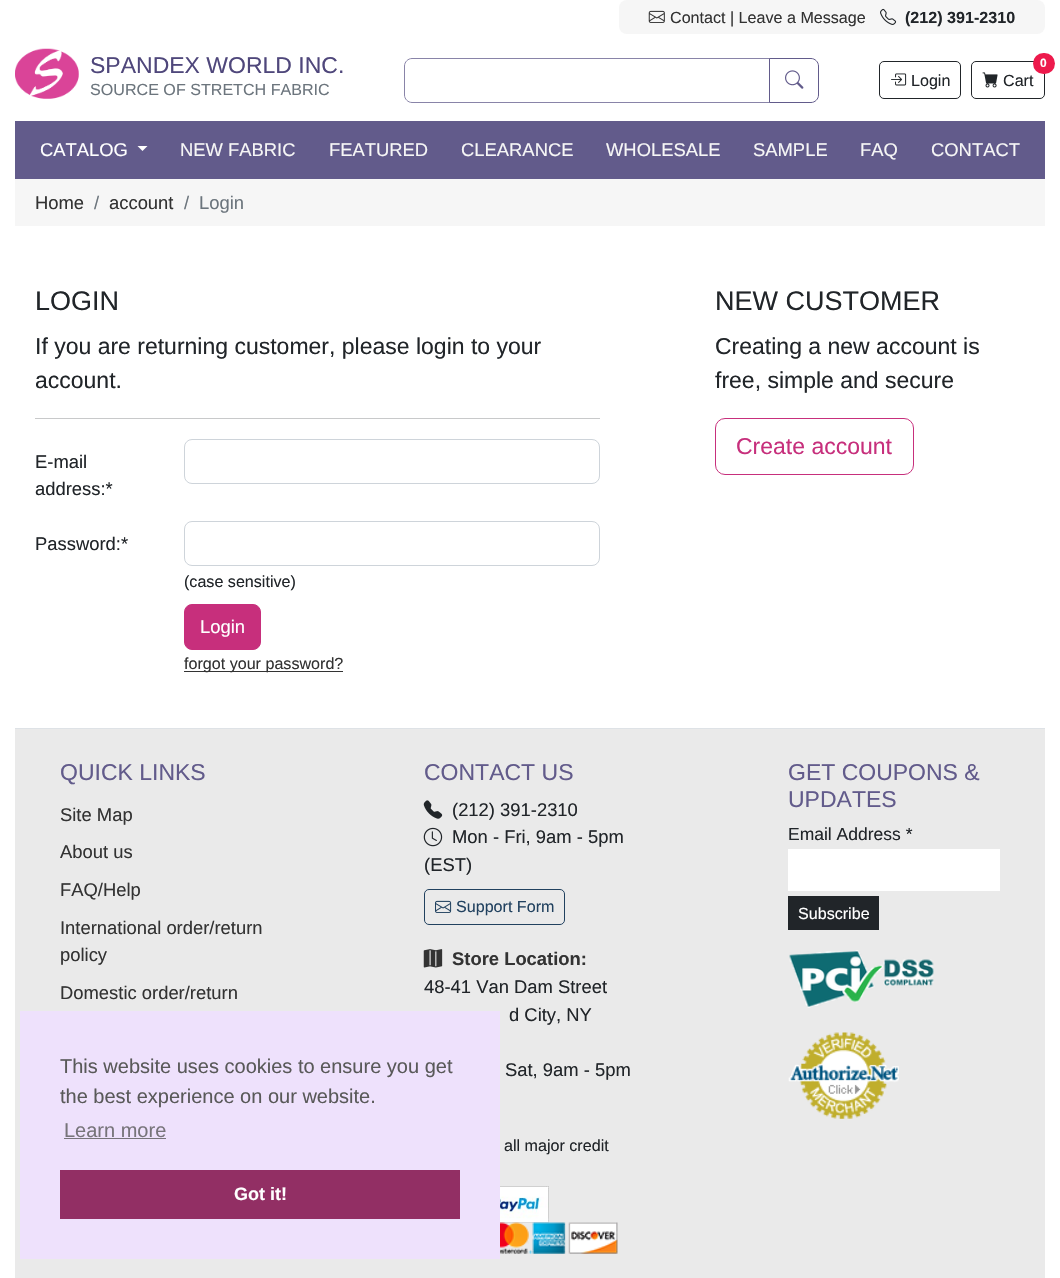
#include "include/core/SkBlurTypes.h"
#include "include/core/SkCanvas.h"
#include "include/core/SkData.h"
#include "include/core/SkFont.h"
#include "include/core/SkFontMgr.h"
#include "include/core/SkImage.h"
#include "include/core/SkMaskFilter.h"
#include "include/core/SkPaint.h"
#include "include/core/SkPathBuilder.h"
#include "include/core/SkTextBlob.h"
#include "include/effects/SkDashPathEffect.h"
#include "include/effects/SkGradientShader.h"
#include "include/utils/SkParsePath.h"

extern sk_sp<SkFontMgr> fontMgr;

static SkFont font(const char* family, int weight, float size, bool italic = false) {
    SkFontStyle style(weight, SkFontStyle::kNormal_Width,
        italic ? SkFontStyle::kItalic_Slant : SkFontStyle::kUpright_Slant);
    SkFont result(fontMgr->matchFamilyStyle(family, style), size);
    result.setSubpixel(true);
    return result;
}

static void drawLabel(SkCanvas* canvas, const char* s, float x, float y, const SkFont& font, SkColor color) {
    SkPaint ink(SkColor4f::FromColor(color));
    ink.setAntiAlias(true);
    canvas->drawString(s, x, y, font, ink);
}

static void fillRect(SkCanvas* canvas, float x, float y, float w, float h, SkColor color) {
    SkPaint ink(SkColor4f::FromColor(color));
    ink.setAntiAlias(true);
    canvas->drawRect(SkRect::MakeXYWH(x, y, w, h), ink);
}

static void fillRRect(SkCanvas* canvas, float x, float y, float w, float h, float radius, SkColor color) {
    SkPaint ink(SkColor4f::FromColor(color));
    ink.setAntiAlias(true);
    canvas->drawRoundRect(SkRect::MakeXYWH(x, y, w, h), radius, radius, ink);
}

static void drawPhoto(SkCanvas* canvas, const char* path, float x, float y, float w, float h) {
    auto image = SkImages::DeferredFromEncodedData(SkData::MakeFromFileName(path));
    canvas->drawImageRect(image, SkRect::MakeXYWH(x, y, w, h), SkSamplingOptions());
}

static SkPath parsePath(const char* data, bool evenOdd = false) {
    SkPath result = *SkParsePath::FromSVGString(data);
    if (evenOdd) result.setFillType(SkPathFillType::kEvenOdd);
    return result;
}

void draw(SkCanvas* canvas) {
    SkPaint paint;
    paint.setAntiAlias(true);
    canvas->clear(0xFFFFFFFF);
    fillRRect(canvas, 619, 0, 426, 34, 8, 0xFFF6F6F6);
    drawPhoto(canvas, "assets/img1.png", 648, 10, 17, 13);
    SkFont font1 = font("Liberation Sans", 400, 16.1f);
    drawLabel(canvas, "Contact | Leave a Message", 670, 23, font1, 0xFF333333);
    drawPhoto(canvas, "assets/img2.png", 880, 8, 17, 17);
    SkFont font2 = font("Liberation Sans", 700, 16.1f);
    drawLabel(canvas, "(212) 391-2310", 905, 23, font2, 0xFF212529);
    drawPhoto(canvas, "assets/img3.png", 15, 48, 64, 51);
    SkFont font3 = font("Liberation Sans", 400, 23);
    drawLabel(canvas, "SPANDEX WORLD INC.", 90, 73, font3, 0xFF4F477B);
    drawLabel(canvas, "SOURCE OF STRETCH FABRIC", 90, 95, font1, 0xFF6C757D);
    paint.setStroke(true);
    paint.setStrokeWidth(1);
    paint.setColor(0xFF8984A8);
    canvas->drawPath(parsePath("M412 58.5H769.5V102.5H412C408 102.5 404.5 99 404.5 95V66C404.5 62 408 58.5 412 58.5Z"), paint);
    paint.setColor(0xFF625B8B);
    canvas->drawPath(parsePath("M769.5 58.5H811C815 58.5 818.5 62 818.5 66V95C818.5 99 815 102.5 811 102.5H769.5Z"), paint);
    drawPhoto(canvas, "assets/img4.png", 785, 70, 19, 19);
    paint.setColor(0xFF212529);
    canvas->drawRoundRect(SkRect::MakeXYWH(879.5f, 61.5f, 81, 37), 4.5f, 4.5f, paint);
    drawPhoto(canvas, "assets/img5.png", 891, 73, 16, 13);
    drawLabel(canvas, "Login", 911, 86, font1, 0xFF212529);
    canvas->drawRoundRect(SkRect::MakeXYWH(971.5f, 61.5f, 73, 37), 4.5f, 4.5f, paint);
    fillRRect(canvas, 1033, 53, 22, 21, 10.5f, 0xFFED1A4C);
    SkFont font4 = font("Liberation Sans", 700, 12);
    drawLabel(canvas, "0", 1040, 67, font4, 0xFFFFFFFF);
    drawPhoto(canvas, "assets/img6.png", 982, 72, 16, 16);
    drawLabel(canvas, "Cart", 1003, 86, font1, 0xFF212529);
    fillRect(canvas, 15, 121, 1030, 58, 0xFF625B8B);
    SkFont font5 = font("Liberation Sans", 400, 18.4f);
    drawLabel(canvas, "CATALOG", 40, 156, font5, 0xFFFFFFFF);
    paint.setStroke(false);
    paint.setColor(0xFFFFFFFF);
    canvas->drawPath(parsePath("M137.5 146H147.5L142.5 151Z"), paint);
    drawLabel(canvas, "NEW FABRIC", 180, 156, font5, 0xFFF6F6F6);
    drawLabel(canvas, "FEATURED", 329, 156, font5, 0xFFF6F6F6);
    drawLabel(canvas, "CLEARANCE", 461, 156, font5, 0xFFF6F6F6);
    drawLabel(canvas, "WHOLESALE", 606, 156, font5, 0xFFF6F6F6);
    drawLabel(canvas, "SAMPLE", 753, 156, font5, 0xFFF6F6F6);
    drawLabel(canvas, "FAQ", 860, 156, font5, 0xFFF6F6F6);
    drawLabel(canvas, "CONTACT", 931, 156, font5, 0xFFF6F6F6);
    fillRect(canvas, 15, 179, 1030, 47, 0xFFF6F6F6);
    drawLabel(canvas, "Home", 35, 209, font5, 0xFF333333);
    drawLabel(canvas, "/", 94, 209, font5, 0xFF6C757D);
    drawLabel(canvas, "account", 109, 209, font5, 0xFF333333);
    drawLabel(canvas, "/", 184, 209, font5, 0xFF6C757D);
    drawLabel(canvas, "Login", 199, 209, font5, 0xFF6C757D);
    SkFont font6 = font("Liberation Sans", 400, 27);
    drawLabel(canvas, "LOGIN", 35, 310, font6, 0xFF212529);
    drawLabel(canvas, "If you are returning customer, please login to your", 35, 354, font3, 0xFF212529);
    drawLabel(canvas, "account.", 35, 388, font3, 0xFF212529);
    fillRect(canvas, 35, 418, 565, 1, 0xFFC8C9CA);
    drawLabel(canvas, "E-mail", 35, 468, font5, 0xFF212529);
    drawLabel(canvas, "address:*", 35, 495, font5, 0xFF212529);
    paint.setStroke(true);
    paint.setColor(0xFFCED4DA);
    canvas->drawRoundRect(SkRect::MakeXYWH(184.5f, 439.5f, 415, 44), 7.5f, 7.5f, paint);
    drawLabel(canvas, "Password:*", 35, 550, font5, 0xFF212529);
    canvas->drawRoundRect(SkRect::MakeXYWH(184.5f, 521.5f, 415, 44), 7.5f, 7.5f, paint);
    drawLabel(canvas, "(case sensitive)", 184, 587, font1, 0xFF212529);
    paint.setStroke(false);
    paint.setColor(0xFFC72F7C);
    canvas->drawRoundRect(SkRect::MakeXYWH(184.5f, 604.5f, 76, 45), 7.5f, 7.5f, paint);
    paint.setStroke(true);
    canvas->drawRoundRect(SkRect::MakeXYWH(184.5f, 604.5f, 76, 45), 7.5f, 7.5f, paint);
    drawLabel(canvas, "Login", 200, 633, font5, 0xFFFFFFFF);
    fillRect(canvas, 184, 671, 159, 1, 0xFF333333);
    drawLabel(canvas, "forgot your password?", 184, 669, font1, 0xFF333333);
    drawLabel(canvas, "NEW CUSTOMER", 715, 310, font6, 0xFF212529);
    drawLabel(canvas, "Creating a new account is", 715, 354, font3, 0xFF212529);
    drawLabel(canvas, "free, simple and secure", 715, 388, font3, 0xFF212529);
    canvas->drawRoundRect(SkRect::MakeXYWH(715.5f, 418.5f, 198, 56), 9.5f, 9.5f, paint);
    drawLabel(canvas, "Create account", 736, 454, font3, 0xFFC72F7C);
    fillRect(canvas, 15, 728, 1030, 1, 0xFFDEE2E6);
    fillRect(canvas, 15, 729, 1030, 549, 0xFFEAEAEA);
    drawLabel(canvas, "QUICK LINKS", 60, 780, font3, 0xFF625B8B);
    drawLabel(canvas, "Site Map", 60, 821, font5, 0xFF333333);
    drawLabel(canvas, "About us", 60, 858, font5, 0xFF333333);
    drawLabel(canvas, "FAQ/Help", 60, 896, font5, 0xFF333333);
    drawLabel(canvas, "International order/return", 60, 934, font5, 0xFF333333);
    drawLabel(canvas, "policy", 60, 961, font5, 0xFF333333);
    drawLabel(canvas, "Domestic order/return", 60, 999, font5, 0xFF333333);
    drawLabel(canvas, "CONTACT US", 424, 780, font3, 0xFF625B8B);
    drawPhoto(canvas, "assets/img7.png", 423, 800, 20, 19);
    drawLabel(canvas, "(212) 391-2310", 452, 816, font5, 0xFF212529);
    drawPhoto(canvas, "assets/img8.png", 423, 827, 20, 20);
    drawLabel(canvas, "Mon - Fri, 9am - 5pm", 452, 843, font5, 0xFF212529);
    drawLabel(canvas, "(EST)", 424, 871, font5, 0xFF212529);
    paint.setColor(0xFF21415F);
    canvas->drawRoundRect(SkRect::MakeXYWH(424.5f, 889.5f, 140, 35), 4.5f, 4.5f, paint);
    drawPhoto(canvas, "assets/img9.png", 435, 900, 17, 13);
    drawLabel(canvas, "Support Form", 456, 912, font1, 0xFF21415F);
    drawPhoto(canvas, "assets/img10.png", 423, 949, 20, 19);
    SkFont font7 = font("Liberation Sans", 700, 18.4f);
    drawLabel(canvas, "Store Location:", 452, 965, font7, 0xFF333333);
    drawLabel(canvas, "48-41 Van Dam Street", 424, 993, font5, 0xFF212529);
    drawLabel(canvas, "d City, NY", 509, 1021, font5, 0xFF212529);
    drawLabel(canvas, "Sat, 9am - 5pm", 505, 1076, font5, 0xFF212529);
    drawLabel(canvas, "all major credit", 504, 1151, font1, 0xFF212529);
    drawPhoto(canvas, "assets/img11.png", 500, 1186, 49, 37);
    drawPhoto(canvas, "assets/img12.png", 500, 1222, 118, 32);
    drawLabel(canvas, "GET COUPONS &", 788, 780, font3, 0xFF625B8B);
    drawLabel(canvas, "UPDATES", 788, 807, font3, 0xFF625B8B);
    SkFont font8 = font("Liberation Sans", 400, 17.5f);
    drawLabel(canvas, "Email Address *", 788, 840, font8, 0xFF212529);
    fillRect(canvas, 788, 849, 212, 42, 0xFFFFFFFF);
    fillRect(canvas, 788, 896, 91, 34, 0xFF212529);
    drawLabel(canvas, "Subscribe", 798, 919, font1, 0xFFFFFFFF);
    drawPhoto(canvas, "assets/img13.png", 789, 950, 145, 58);
    drawPhoto(canvas, "assets/img14.png", 788, 1032, 111, 87);
    fillRect(canvas, 20, 1011, 480, 248, 0xFFEEE1FC);
    SkFont font9 = font("Liberation Sans", 400, 20);
    drawLabel(canvas, "This website uses cookies to ensure you get", 60, 1073, font9, 0xFF595959);
    drawLabel(canvas, "the best experience on our website.", 60, 1103, font9, 0xFF595959);
    drawLabel(canvas, "Learn more", 64, 1137, font9, 0xFF77747A);
    fillRect(canvas, 64, 1138, 102, 1, 0xFF77747A);
    fillRect(canvas, 60, 1170, 400, 49, 0xFF922F64);
    SkFont font10 = font("Liberation Sans", 700, 18);
    drawLabel(canvas, "Got it!", 234, 1200, font10, 0xFFFFFFFF);
}
